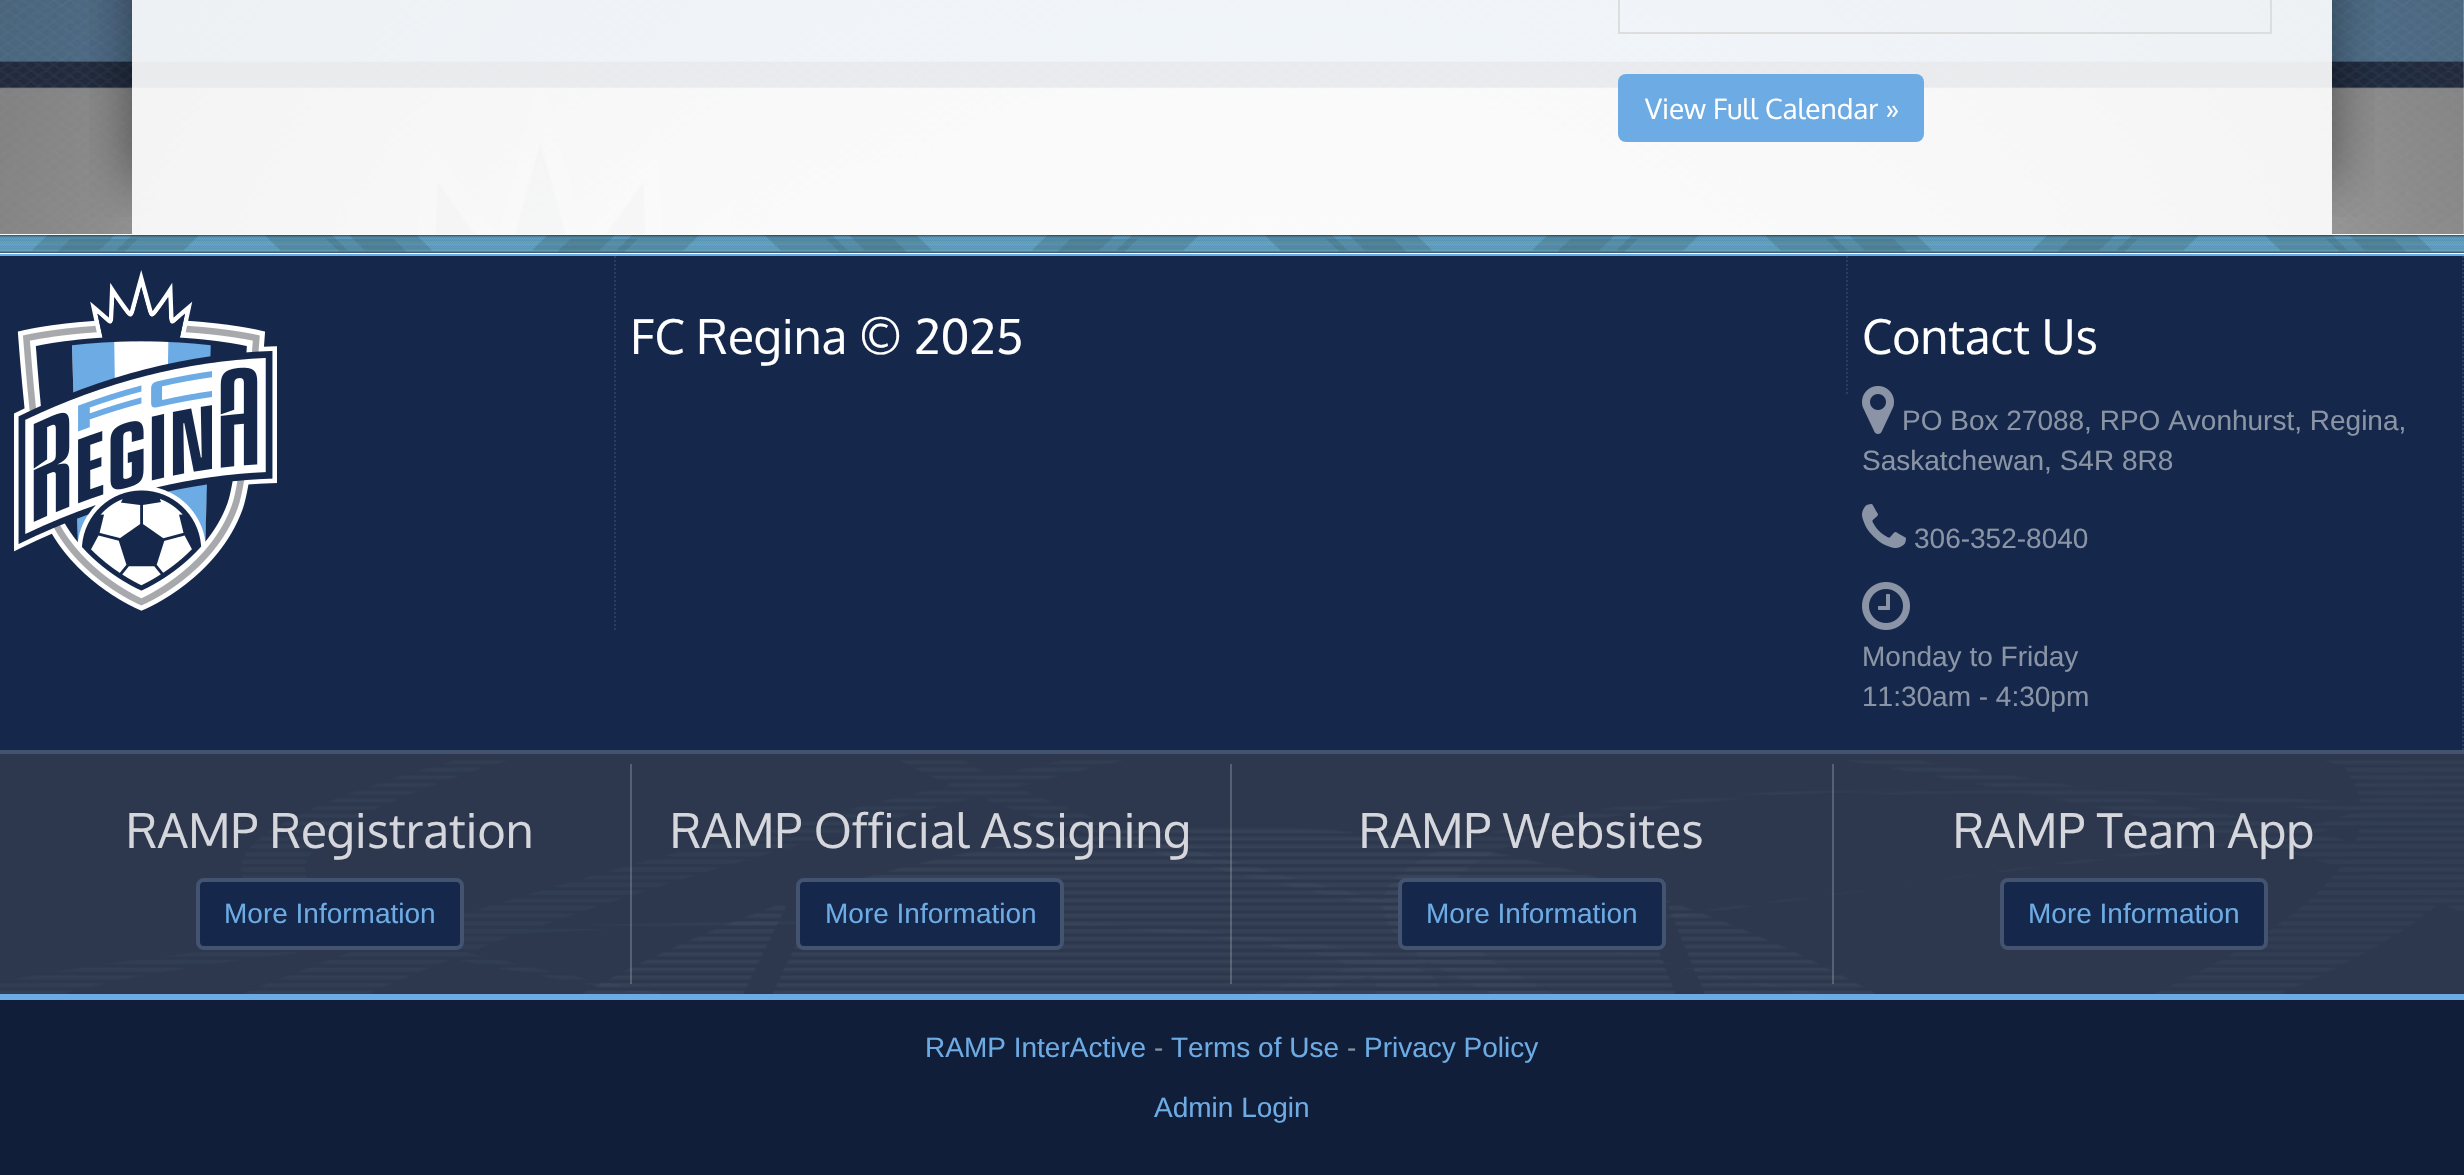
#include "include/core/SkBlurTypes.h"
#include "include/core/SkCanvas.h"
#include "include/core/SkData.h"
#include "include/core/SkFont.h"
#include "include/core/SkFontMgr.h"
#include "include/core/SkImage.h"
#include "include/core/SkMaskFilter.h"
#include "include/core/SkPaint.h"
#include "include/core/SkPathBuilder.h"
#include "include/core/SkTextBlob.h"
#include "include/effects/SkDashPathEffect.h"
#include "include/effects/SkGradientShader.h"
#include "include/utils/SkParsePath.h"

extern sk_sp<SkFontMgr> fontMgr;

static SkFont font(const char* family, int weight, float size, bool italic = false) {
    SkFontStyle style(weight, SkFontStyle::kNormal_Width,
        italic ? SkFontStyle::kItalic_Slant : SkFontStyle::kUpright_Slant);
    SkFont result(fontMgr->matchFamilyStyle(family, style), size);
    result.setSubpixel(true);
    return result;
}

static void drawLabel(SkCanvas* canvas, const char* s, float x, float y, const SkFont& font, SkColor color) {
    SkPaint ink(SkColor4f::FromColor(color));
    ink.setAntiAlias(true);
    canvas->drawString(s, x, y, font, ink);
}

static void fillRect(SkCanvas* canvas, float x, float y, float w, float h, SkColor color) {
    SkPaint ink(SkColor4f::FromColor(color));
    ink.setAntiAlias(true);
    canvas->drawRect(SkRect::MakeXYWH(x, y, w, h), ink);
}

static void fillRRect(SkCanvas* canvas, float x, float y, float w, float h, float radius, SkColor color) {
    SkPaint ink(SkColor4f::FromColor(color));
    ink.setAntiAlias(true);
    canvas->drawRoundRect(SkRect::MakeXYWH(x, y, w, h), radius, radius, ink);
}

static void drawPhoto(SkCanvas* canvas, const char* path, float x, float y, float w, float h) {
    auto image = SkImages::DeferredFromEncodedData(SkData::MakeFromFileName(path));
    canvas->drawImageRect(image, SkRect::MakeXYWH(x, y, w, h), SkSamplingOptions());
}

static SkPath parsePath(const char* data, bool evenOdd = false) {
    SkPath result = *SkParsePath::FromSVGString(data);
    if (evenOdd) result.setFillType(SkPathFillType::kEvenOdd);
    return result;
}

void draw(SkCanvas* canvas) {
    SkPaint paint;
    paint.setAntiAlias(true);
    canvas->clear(0xFFFFFFFF);
    drawPhoto(canvas, "assets/img1.png", 0, 0, 2464, 234);
    canvas->save();
    canvas->clipRect(SkRect::MakeXYWH(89, 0, 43, 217));
    paint.setColor(0x73000000);
    paint.setMaskFilter(SkMaskFilter::MakeBlur(kNormal_SkBlurStyle, 25));
    canvas->drawRect(SkRect::MakeXYWH(132, -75, 2100, 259), paint);
    paint.setMaskFilter(nullptr);
    canvas->restore();
    canvas->save();
    canvas->clipRect(SkRect::MakeXYWH(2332, 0, 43, 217));
    paint.setMaskFilter(SkMaskFilter::MakeBlur(kNormal_SkBlurStyle, 25));
    canvas->drawRect(SkRect::MakeXYWH(232, -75, 2100, 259), paint);
    paint.setMaskFilter(nullptr);
    canvas->restore();
    fillRect(canvas, 132, 0, 2200, 234, 0xE6FFFFFF);
    paint.setStroke(true);
    paint.setStrokeWidth(2);
    paint.setColor(0xFFDDDDDD);
    canvas->drawRect(SkRect::MakeXYWH(1619, -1, 652, 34), paint);
    fillRRect(canvas, 1618, 74, 306, 68, 8, 0xFF6DABE4);
    SkFont font1 = font("Oxygen", 400, 28);
    drawLabel(canvas, "View Full Calendar »", 1645, 119, font1, 0xFFFFFFFF);
    fillRect(canvas, 0, 234, 2464, 22, 0xFF6DABE4);
    drawPhoto(canvas, "assets/img2.png", 0, 234, 2464, 20);
    fillRect(canvas, 0, 256, 2464, 494, 0xFF15284B);
    paint.setColor(0xFF2C3E5D);
    paint.setPathEffect(SkDashPathEffect::Make({{2, 2}}, 0));
    canvas->drawPath(parsePath("M615 256V632"), paint);
    paint.setPathEffect(nullptr);
    drawPhoto(canvas, "assets/img3.png", 14, 270, 263, 341);
    paint.setPathEffect(SkDashPathEffect::Make({{2, 2}}, 0));
    canvas->drawPath(parsePath("M1847 256V396"), paint);
    paint.setPathEffect(nullptr);
    SkFont font2 = font("Oxygen", 400, 48);
    drawLabel(canvas, "FC Regina © 2025", 630, 354, font2, 0xFFFFFFFF);
    paint.setPathEffect(SkDashPathEffect::Make({{2, 2}}, 0));
    canvas->drawPath(parsePath("M2463 256V750"), paint);
    paint.setPathEffect(nullptr);
    drawLabel(canvas, "Contact Us", 1862, 354, font2, 0xFFFFFFFF);
    drawPhoto(canvas, "assets/img4.png", 1862, 386, 32, 48);
    SkFont font3 = font("Liberation Sans", 400, 28);
    drawLabel(canvas, "PO Box 27088, RPO Avonhurst, Regina,", 1902, 430, font3, 0xFF8A94A5);
    drawLabel(canvas, "Saskatchewan, S4R 8R8", 1862, 470, font3, 0xFF8A94A5);
    drawPhoto(canvas, "assets/img5.png", 1862, 504, 44, 44);
    drawLabel(canvas, "306-352-8040", 1914, 548, font3, 0xFF8A94A5);
    drawPhoto(canvas, "assets/img6.png", 1862, 582, 48, 48);
    drawLabel(canvas, "Monday to Friday", 1862, 666, font3, 0xFF8A94A5);
    drawLabel(canvas, "11:30am - 4:30pm", 1862, 706, font3, 0xFF8A94A5);
    fillRect(canvas, 0, 750, 2464, 4, 0xFF44536F);
    fillRect(canvas, 0, 754, 2464, 240, 0xFF0F1C35);
    drawPhoto(canvas, "assets/img7.png", 0, 754, 2464, 240);
    fillRect(canvas, 630, 764, 2, 220, 0x33FFFFFF);
    drawLabel(canvas, "RAMP Registration", 126, 848, font2, 0xFFD5D7DC);
    fillRRect(canvas, 196, 878, 268, 72, 8, 0xFF15284B);
    paint.setStrokeWidth(4);
    paint.setColor(0x33FFFFFF);
    canvas->drawRoundRect(SkRect::MakeXYWH(198, 880, 264, 68), 6, 6, paint);
    drawLabel(canvas, "More Information", 224, 923, font3, 0xFF6DABE4);
    fillRect(canvas, 1230, 764, 2, 220, 0x33FFFFFF);
    drawLabel(canvas, "RAMP Official Assigning", 670, 848, font2, 0xFFD5D7DC);
    fillRRect(canvas, 796, 878, 268, 72, 8, 0xFF15284B);
    canvas->drawRoundRect(SkRect::MakeXYWH(798, 880, 264, 68), 6, 6, paint);
    drawLabel(canvas, "More Information", 825, 923, font3, 0xFF6DABE4);
    fillRect(canvas, 1832, 764, 2, 220, 0x33FFFFFF);
    drawLabel(canvas, "RAMP Websites", 1359, 848, font2, 0xFFD5D7DC);
    fillRRect(canvas, 1398, 878, 268, 72, 8, 0xFF15284B);
    canvas->drawRoundRect(SkRect::MakeXYWH(1400, 880, 264, 68), 6, 6, paint);
    drawLabel(canvas, "More Information", 1426, 923, font3, 0xFF6DABE4);
    drawLabel(canvas, "RAMP Team App", 1953, 848, font2, 0xFFD5D7DC);
    fillRRect(canvas, 2000, 878, 268, 72, 8, 0xFF15284B);
    canvas->drawRoundRect(SkRect::MakeXYWH(2002, 880, 264, 68), 6, 6, paint);
    drawLabel(canvas, "More Information", 2028, 923, font3, 0xFF6DABE4);
    fillRect(canvas, 0, 994, 2464, 6, 0xFF6DABE4);
    fillRect(canvas, 0, 1000, 2464, 175, 0xFF101E39);
    drawLabel(canvas, "RAMP InterActive", 925, 1057, font3, 0xFF6DABE4);
    drawLabel(canvas, "-", 1154, 1057, font3, 0xFF888F9C);
    drawLabel(canvas, "Terms of Use", 1171, 1057, font3, 0xFF6DABE4);
    drawLabel(canvas, "-", 1347, 1057, font3, 0xFF888F9C);
    drawLabel(canvas, "Privacy Policy", 1364, 1057, font3, 0xFF6DABE4);
    drawLabel(canvas, "Admin Login", 1154, 1117, font3, 0xFF6DABE4);
}
